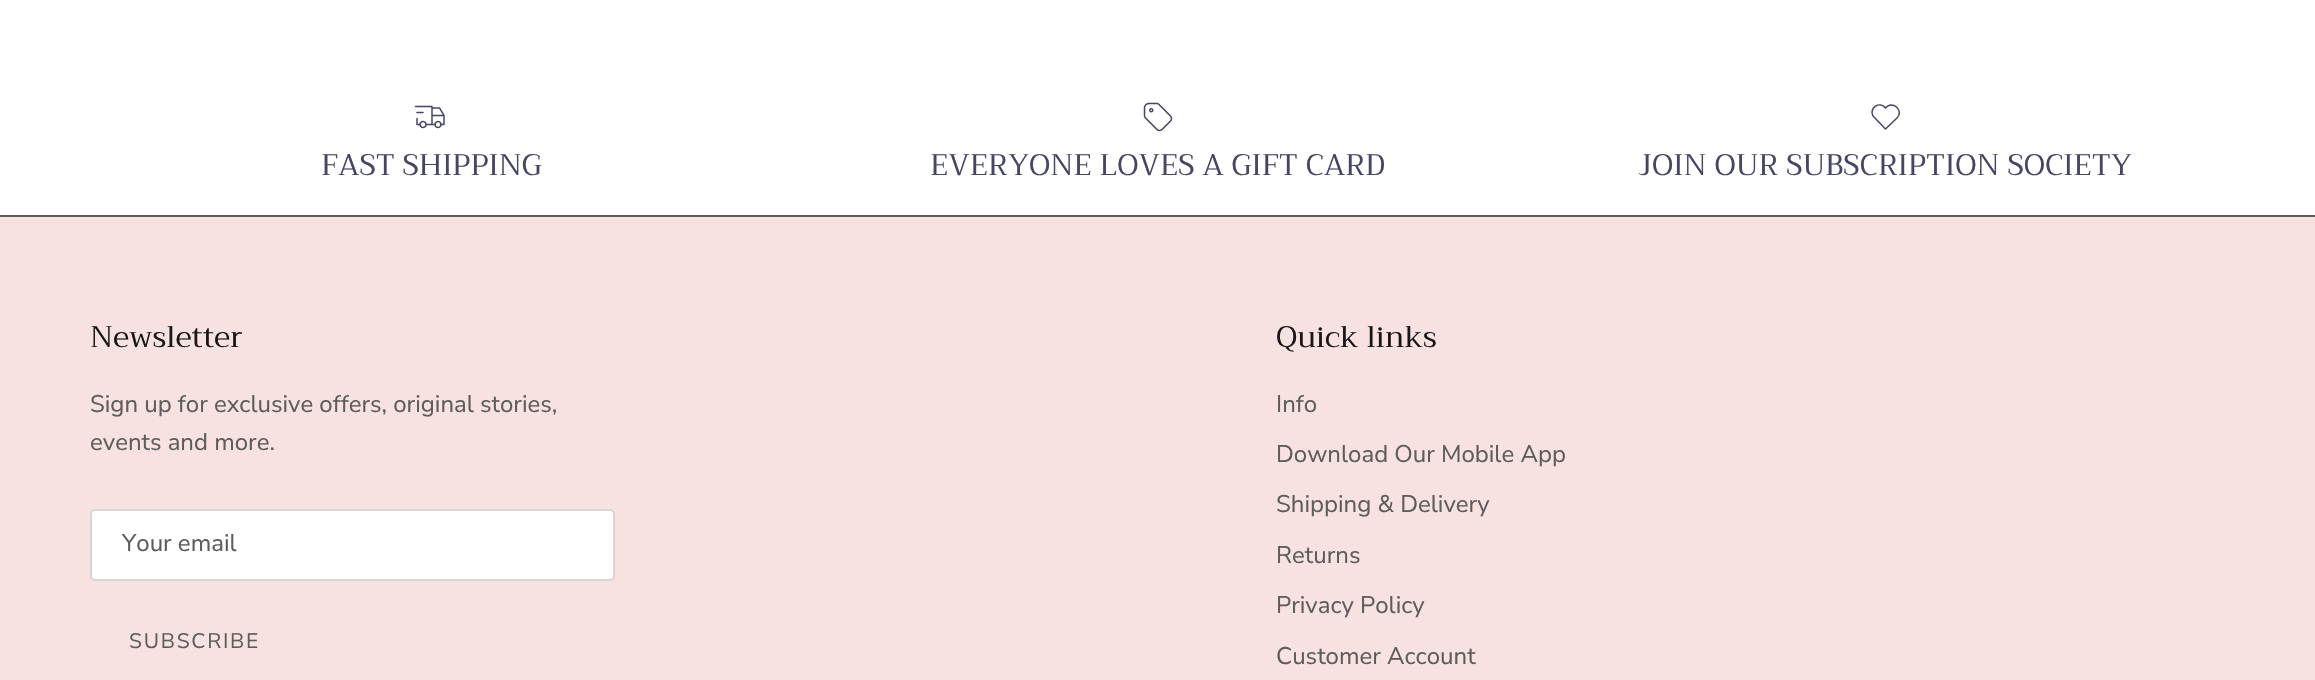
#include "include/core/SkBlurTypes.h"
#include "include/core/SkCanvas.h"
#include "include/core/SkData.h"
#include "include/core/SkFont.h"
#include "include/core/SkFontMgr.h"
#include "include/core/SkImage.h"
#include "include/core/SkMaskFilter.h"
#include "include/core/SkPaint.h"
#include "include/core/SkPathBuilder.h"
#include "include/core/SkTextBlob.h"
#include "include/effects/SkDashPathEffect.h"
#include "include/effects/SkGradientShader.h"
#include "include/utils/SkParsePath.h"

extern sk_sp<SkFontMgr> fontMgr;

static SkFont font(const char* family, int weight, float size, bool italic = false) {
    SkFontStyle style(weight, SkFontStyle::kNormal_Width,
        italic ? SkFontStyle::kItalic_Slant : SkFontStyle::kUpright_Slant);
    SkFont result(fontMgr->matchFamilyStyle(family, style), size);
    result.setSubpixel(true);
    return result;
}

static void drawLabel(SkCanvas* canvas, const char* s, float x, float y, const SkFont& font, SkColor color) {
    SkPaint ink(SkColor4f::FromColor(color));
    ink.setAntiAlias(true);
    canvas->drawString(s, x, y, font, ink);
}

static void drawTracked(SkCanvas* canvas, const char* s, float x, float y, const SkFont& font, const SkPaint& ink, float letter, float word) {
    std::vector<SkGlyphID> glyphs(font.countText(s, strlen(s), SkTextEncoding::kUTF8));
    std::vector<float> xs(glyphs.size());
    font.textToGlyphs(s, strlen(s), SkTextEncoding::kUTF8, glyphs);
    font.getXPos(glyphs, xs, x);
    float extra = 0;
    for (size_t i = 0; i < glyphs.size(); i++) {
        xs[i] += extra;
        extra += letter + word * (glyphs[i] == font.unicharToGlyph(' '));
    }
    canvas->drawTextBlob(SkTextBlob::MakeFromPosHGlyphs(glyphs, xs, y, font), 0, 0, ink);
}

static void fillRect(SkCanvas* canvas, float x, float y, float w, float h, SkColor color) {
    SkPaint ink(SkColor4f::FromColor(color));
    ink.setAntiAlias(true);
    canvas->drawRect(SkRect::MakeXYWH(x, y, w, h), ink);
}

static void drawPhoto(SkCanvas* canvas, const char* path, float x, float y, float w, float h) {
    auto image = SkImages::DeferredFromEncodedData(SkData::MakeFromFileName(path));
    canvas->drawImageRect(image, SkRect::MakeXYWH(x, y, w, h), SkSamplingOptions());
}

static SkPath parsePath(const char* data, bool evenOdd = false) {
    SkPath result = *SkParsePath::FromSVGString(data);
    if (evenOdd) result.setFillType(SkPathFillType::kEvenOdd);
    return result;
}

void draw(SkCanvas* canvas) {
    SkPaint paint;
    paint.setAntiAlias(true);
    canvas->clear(0xFFFFFFFF);
    drawPhoto(canvas, "assets/img1.png", 414, 105, 31, 24);
    SkFont font1 = font("Trirong", 400, 29.75f);
    drawLabel(canvas, "FAST SHIPPING", 321, 175, font1, 0xFF454564);
    drawPhoto(canvas, "assets/img2.png", 1143, 102, 30, 30);
    drawLabel(canvas, "EVERYONE LOVES A GIFT CARD", 930, 175, font1, 0xFF454564);
    paint.setStroke(true);
    paint.setStrokeWidth(1.5f);
    paint.setStrokeCap(SkPaint::kRound_Cap);
    paint.setStrokeJoin(SkPaint::kRound_Join);
    paint.setColor(0xFF454564);
    canvas->drawPath(parsePath("M1897 118L1885.5 129L1873 116C1868.5 108 1880 100.5 1885.5 108C1892 99.5 1904.5 110.5 1897 118"), paint);
    drawLabel(canvas, "JOIN OUR SUBSCRIPTION SOCIETY", 1638, 175, font1, 0xFF454564);
    fillRect(canvas, 0, 217, 2315, 463, 0xFFF8E1E1);
    fillRect(canvas, 0, 215, 2315, 2, 0xFF5C5C5C);
    drawLabel(canvas, "Newsletter", 90, 347, font1, 0xFF171717);
    SkFont font2 = font("Nunito Sans", 400, 24);
    drawLabel(canvas, "Sign up for exclusive offers, original stories,", 90, 412, font2, 0xFF5C5C5C);
    drawLabel(canvas, "events and more.", 90, 450, font2, 0xFF5C5C5C);
    paint.setStroke(false);
    paint.setColor(0xFFFFFFFF);
    canvas->drawRoundRect(SkRect::MakeXYWH(91, 510, 523, 70), 4, 4, paint);
    paint.setStroke(true);
    paint.setStrokeWidth(2);
    paint.setStrokeCap(SkPaint::kButt_Cap);
    paint.setStrokeJoin(SkPaint::kMiter_Join);
    paint.setColor(0xFFD6D6D6);
    canvas->drawRoundRect(SkRect::MakeXYWH(91, 510, 523, 70), 4, 4, paint);
    drawLabel(canvas, "Your email", 122, 551, font2, 0xFF5C5C5C);
    SkFont font3 = font("Nunito Sans", 400, 21);
    paint.setStroke(false);
    paint.setColor(0xFF5C5C5C);
    drawTracked(canvas, "SUBSCRIBE", 129, 648, font3, paint, 1.75f, 0);
    drawLabel(canvas, "Quick links", 1276, 347, font1, 0xFF171717);
    drawLabel(canvas, "Info", 1276, 412, font2, 0xFF5C5C5C);
    drawLabel(canvas, "Download Our Mobile App", 1276, 462, font2, 0xFF5C5C5C);
    drawLabel(canvas, "Shipping & Delivery", 1276, 512, font2, 0xFF5C5C5C);
    drawLabel(canvas, "Returns", 1276, 563, font2, 0xFF5C5C5C);
    drawLabel(canvas, "Privacy Policy", 1276, 613, font2, 0xFF5C5C5C);
    drawLabel(canvas, "Customer Account", 1276, 664, font2, 0xFF5C5C5C);
}
